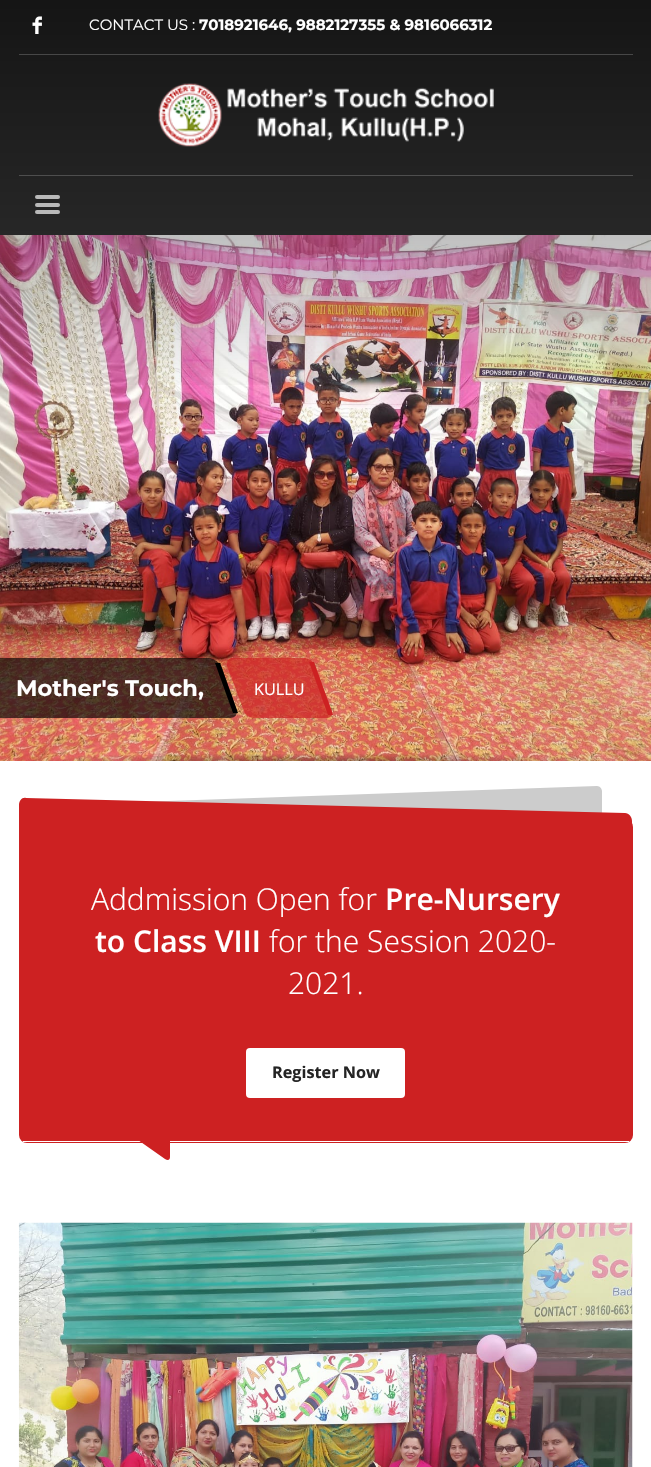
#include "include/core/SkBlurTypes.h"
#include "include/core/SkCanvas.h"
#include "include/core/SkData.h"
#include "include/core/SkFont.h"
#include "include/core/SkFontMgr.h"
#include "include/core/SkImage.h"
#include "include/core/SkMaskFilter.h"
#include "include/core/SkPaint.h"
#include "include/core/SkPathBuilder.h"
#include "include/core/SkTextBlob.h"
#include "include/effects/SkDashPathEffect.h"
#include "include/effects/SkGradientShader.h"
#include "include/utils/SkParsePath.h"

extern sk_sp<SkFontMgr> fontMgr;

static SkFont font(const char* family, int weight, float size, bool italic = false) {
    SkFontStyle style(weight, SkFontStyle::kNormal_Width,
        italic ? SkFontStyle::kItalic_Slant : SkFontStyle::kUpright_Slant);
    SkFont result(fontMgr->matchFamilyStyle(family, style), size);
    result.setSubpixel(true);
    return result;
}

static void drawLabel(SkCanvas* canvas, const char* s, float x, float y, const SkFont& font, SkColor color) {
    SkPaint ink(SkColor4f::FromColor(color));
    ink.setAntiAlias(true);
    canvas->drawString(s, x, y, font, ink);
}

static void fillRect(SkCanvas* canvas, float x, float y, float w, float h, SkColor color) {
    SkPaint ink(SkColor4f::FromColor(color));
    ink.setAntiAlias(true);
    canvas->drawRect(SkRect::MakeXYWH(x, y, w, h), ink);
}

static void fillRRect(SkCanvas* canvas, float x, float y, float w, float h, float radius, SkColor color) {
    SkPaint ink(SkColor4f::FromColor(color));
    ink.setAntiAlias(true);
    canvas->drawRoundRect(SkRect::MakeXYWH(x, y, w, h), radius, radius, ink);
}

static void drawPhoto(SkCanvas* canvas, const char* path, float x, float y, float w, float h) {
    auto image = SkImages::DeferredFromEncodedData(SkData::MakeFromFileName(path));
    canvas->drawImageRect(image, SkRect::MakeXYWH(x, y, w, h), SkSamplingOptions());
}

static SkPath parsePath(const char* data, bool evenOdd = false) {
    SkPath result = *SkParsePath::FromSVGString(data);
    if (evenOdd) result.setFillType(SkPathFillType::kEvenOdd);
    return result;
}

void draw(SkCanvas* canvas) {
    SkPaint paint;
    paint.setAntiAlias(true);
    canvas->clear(0xFFFFFFFF);
    fillRect(canvas, 0, 0, 651, 235, 0xFF333333);
    drawPhoto(canvas, "assets/img3.png", 0, 235, 651, 526);
    {
        const SkColor colors[] = {0x99000000, 0x00000000};
        const float stops[] = {0, 1};
        const SkPoint ends[] = {{326, 0}, {326, 399}};
        paint.setShader(SkGradientShader::MakeLinear(ends, colors, stops, 2, SkTileMode::kClamp));
        paint.setAlpha(255);
    }
    canvas->drawRect(SkRect::MakeXYWH(0, 0, 651, 385), paint);
    drawPhoto(canvas, "assets/img1.png", 32, 16, 10, 18);
    SkFont font1 = font("Montserrat", 400, 15);
    drawLabel(canvas, "CONTACT US :", 89, 30, font1, 0xFFFFFFFF);
    SkFont font2 = font("Montserrat", 700, 15);
    drawLabel(canvas, "7018921646, 9882127355 & 9816066312", 199, 30, font2, 0xFFFFFFFF);
    fillRect(canvas, 19, 54, 614, 1, 0xFF474747);
    drawPhoto(canvas, "assets/img2.png", 158, 83, 336, 64);
    fillRect(canvas, 19, 175, 614, 1, 0xFF4E4E4E);
    fillRRect(canvas, 35, 195, 25, 4, 2, 0xFFB9B9B9);
    fillRRect(canvas, 35, 203, 25, 4, 2, 0xFFB9B9B9);
    fillRRect(canvas, 35, 210, 25, 4, 2, 0xFFB9B9B9);
    paint.setShader(nullptr);
    paint.setColor(0xB3CD2122);
    canvas->drawPath(parsePath("M232 658H305C309 658 314 662 315 666L332 711C333 715 331 718 327 718H254C250 718 245 715 244 711L227 666C226 662 228 658 232 658Z"), paint);
    paint.setColor(0xA6000000);
    canvas->drawPath(parsePath("M-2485 658H208C214 658 220 663 222 668L236 708C238 714 236 718 230 718H-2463C-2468 718-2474 714-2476 708L-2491 668C-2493 663-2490 658-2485 658Z"), paint);
    paint.setColor(0xFF000000);
    canvas->drawPath(parsePath("M215 663H220L238 713H233Z"), paint);
    SkFont font3 = font("Montserrat", 700, 22.5f);
    drawLabel(canvas, "Mother's Touch,", 16, 696, font3, 0xFFFFFFFF);
    paint.setColor(0xFFCD2122);
    canvas->drawPath(parsePath("M309 662H314L333 715H328Z"), paint);
    SkFont font4 = font("Open Sans", 400, 16.25f);
    drawLabel(canvas, "KULLU", 254, 695, font4, 0xFFFFFFFF);
    fillRRect(canvas, 19, 819, 614, 324, 8, 0xFFCD2122);
    fillRect(canvas, 23, 1141, 606, 1, 0xFFFFFFFF);
    paint.setColor(0x33000000);
    canvas->drawPath(parsePath("M54 805L597 786C600 786 602 789 602 791V877C602 880 600 883 597 883L54 902C52 902 49 900 49 897V811C49 808 52 805 54 805Z"), paint);
    paint.setColor(0xFFCD2122);
    canvas->drawPath(parsePath("M138 1100L165 1119C168 1121 170 1125 170 1127V1157C170 1160 168 1161 165 1159L138 1140C135 1138 133 1134 133 1131V1101C133 1098 135 1098 138 1100Z"), paint);
    canvas->drawPath(parsePath("M26 798L625 813C629 813 632 817 632 821V1127C632 1131 629 1134 625 1134L26 1118C22 1118 19 1115 19 1111V805C19 801 22 797 26 798Z"), paint);
    SkFont font5 = font("Open Sans", 300, 30);
    drawLabel(canvas, "Addmission Open for", 91, 910, font5, 0xFFFFFFFF);
    SkFont font6 = font("Open Sans", 600, 30);
    drawLabel(canvas, "Pre-Nursery", 385, 910, font6, 0xFFFFFFFF);
    drawLabel(canvas, "to Class VIII", 95, 952, font6, 0xFFFFFFFF);
    drawLabel(canvas, "for the Session 2020-", 269, 952, font5, 0xFFFFFFFF);
    drawLabel(canvas, "2021.", 288, 994, font5, 0xFFFFFFFF);
    fillRRect(canvas, 246, 1048, 159, 50, 4, 0xFFFFFFFF);
    SkFont font7 = font("Open Sans", 700, 16.25f);
    drawLabel(canvas, "Register Now", 272, 1078, font7, 0xFF242424);
    drawPhoto(canvas, "assets/img4.png", 18, 1222, 615, 245);
}
